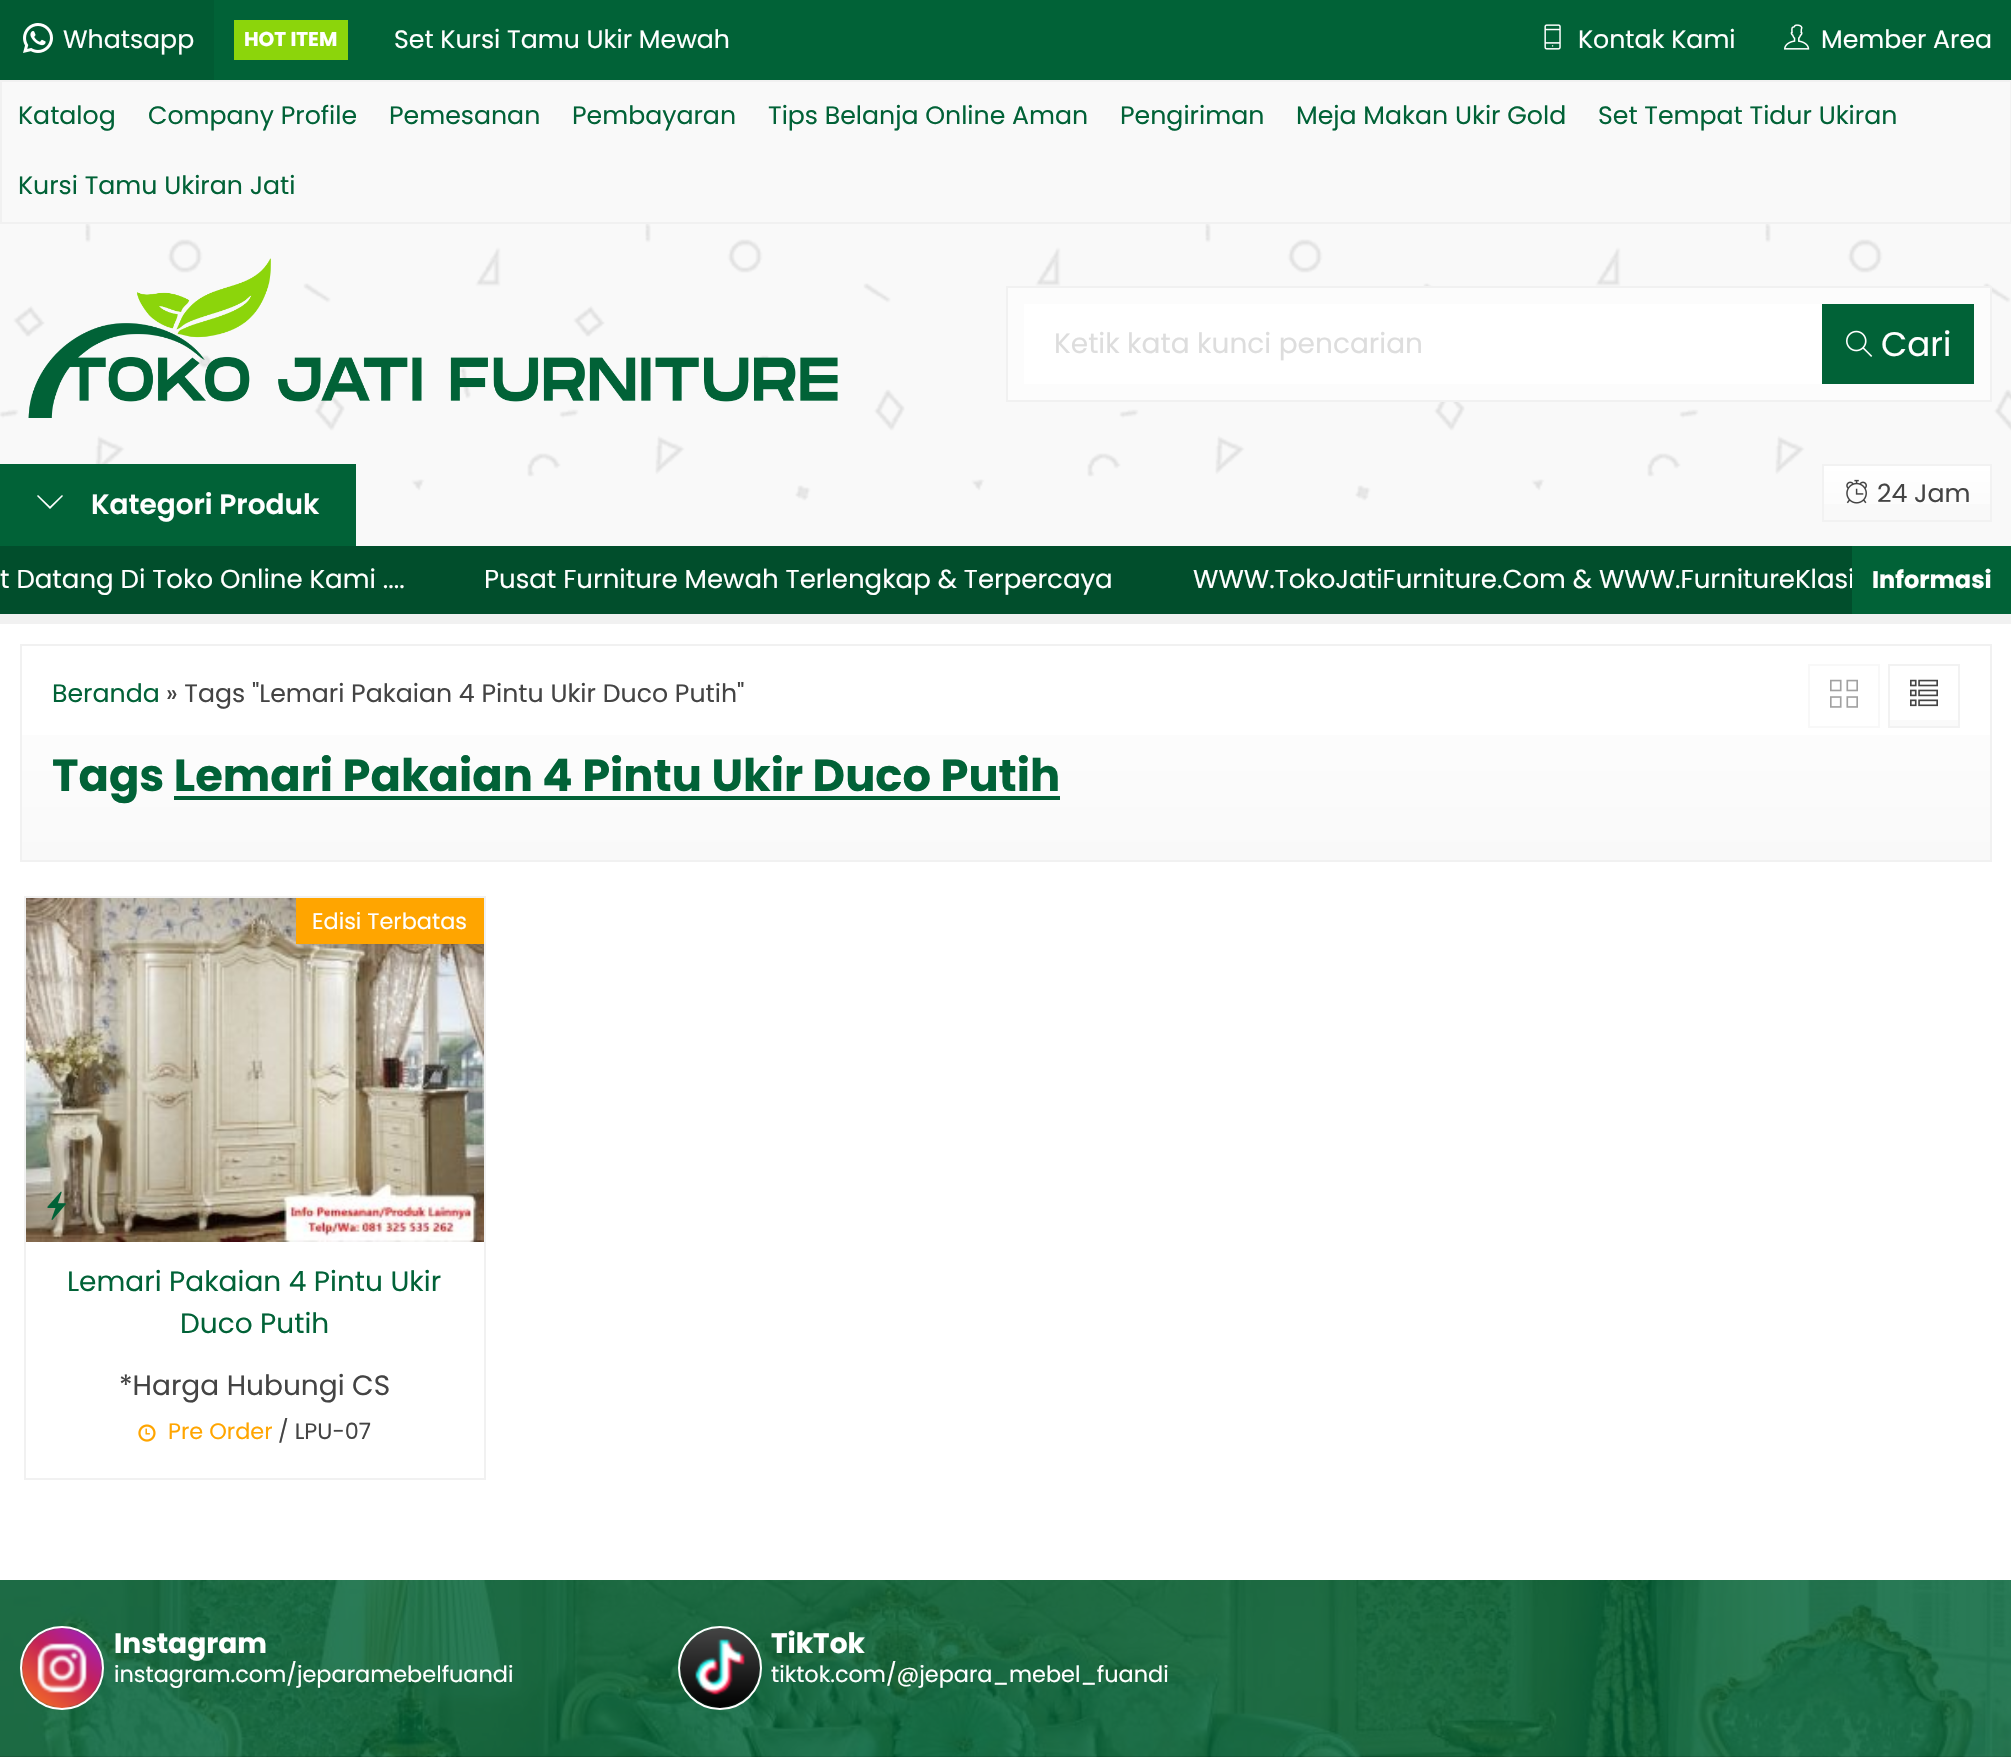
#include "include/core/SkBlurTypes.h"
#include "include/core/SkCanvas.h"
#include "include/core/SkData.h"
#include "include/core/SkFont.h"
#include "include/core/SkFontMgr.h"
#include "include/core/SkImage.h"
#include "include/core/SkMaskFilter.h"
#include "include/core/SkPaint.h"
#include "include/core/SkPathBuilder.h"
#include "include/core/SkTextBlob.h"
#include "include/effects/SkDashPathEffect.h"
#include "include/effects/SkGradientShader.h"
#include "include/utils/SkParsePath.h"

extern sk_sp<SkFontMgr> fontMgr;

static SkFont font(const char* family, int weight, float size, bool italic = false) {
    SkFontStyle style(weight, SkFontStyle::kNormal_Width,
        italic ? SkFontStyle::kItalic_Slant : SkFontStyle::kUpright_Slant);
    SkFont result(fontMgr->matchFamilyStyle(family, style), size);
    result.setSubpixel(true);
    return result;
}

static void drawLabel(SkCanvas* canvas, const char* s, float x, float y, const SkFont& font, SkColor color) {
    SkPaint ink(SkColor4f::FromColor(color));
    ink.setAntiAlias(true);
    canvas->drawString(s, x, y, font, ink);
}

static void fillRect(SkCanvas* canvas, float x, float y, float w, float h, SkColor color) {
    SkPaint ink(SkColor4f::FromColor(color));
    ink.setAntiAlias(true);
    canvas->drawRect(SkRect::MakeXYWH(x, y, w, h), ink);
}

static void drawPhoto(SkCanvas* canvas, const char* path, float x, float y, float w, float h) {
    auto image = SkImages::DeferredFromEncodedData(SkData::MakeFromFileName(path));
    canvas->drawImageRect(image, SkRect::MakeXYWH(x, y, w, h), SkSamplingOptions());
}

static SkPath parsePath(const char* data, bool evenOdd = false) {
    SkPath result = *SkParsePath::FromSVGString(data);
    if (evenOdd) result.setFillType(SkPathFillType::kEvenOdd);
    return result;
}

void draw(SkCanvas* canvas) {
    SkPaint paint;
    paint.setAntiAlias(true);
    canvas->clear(0xFFF9F9F9);
    fillRect(canvas, 214, 0, 1797, 80, 0xFF016237);
    fillRect(canvas, 0, 0, 214, 80, 0xFF015B33);
    drawPhoto(canvas, "assets/img1.png", 23, 23, 30, 30);
    SkFont font1 = font("Poppins", 400, 25.2f);
    drawLabel(canvas, "Whatsapp", 63, 48, font1, 0xFFFFFFFF);
    fillRect(canvas, 234, 20, 114, 40, 0xFF8CD50B);
    SkFont font2 = font("Poppins", 700, 20);
    drawLabel(canvas, "HOT ITEM", 244, 46, font2, 0xFFFFFFFF);
    drawLabel(canvas, "Set Kursi Tamu Ukir Mewah", 394, 48, font1, 0xFFFFFFFF);
    drawPhoto(canvas, "assets/img2.png", 1544, 24, 17, 26);
    drawLabel(canvas, "Kontak Kami", 1578, 48, font1, 0xFFFFFFFF);
    drawPhoto(canvas, "assets/img3.png", 1784, 24, 26, 26);
    drawLabel(canvas, "Member Area", 1821, 48, font1, 0xFFFFFFFF);
    paint.setStroke(true);
    paint.setStrokeWidth(2);
    paint.setColor(0xFFF1F1F1);
    canvas->drawRect(SkRect::MakeXYWH(1, 81, 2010, 142), paint);
    drawLabel(canvas, "Katalog", 18, 124, font1, 0xFF016237);
    drawLabel(canvas, "Company Profile", 148, 124, font1, 0xFF016237);
    drawLabel(canvas, "Pemesanan", 389, 124, font1, 0xFF016237);
    drawLabel(canvas, "Pembayaran", 572, 124, font1, 0xFF016237);
    drawLabel(canvas, "Tips Belanja Online Aman", 768, 124, font1, 0xFF016237);
    drawLabel(canvas, "Pengiriman", 1120, 124, font1, 0xFF016237);
    drawLabel(canvas, "Meja Makan Ukir Gold", 1296, 124, font1, 0xFF016237);
    drawLabel(canvas, "Set Tempat Tidur Ukiran", 1598, 124, font1, 0xFF016237);
    drawLabel(canvas, "Kursi Tamu Ukiran Jati", 18, 194, font1, 0xFF016237);
    drawPhoto(canvas, "assets/img4.png", 0, 224, 2011, 277);
    drawPhoto(canvas, "assets/img5.png", 28, 258, 810, 160);
    paint.setStroke(false);
    paint.setColor(0xFFFCFCFC);
    canvas->drawRect(SkRect::MakeXYWH(1007, 287, 984, 114), paint);
    paint.setStroke(true);
    paint.setColor(0xFFF1F1F1);
    canvas->drawRect(SkRect::MakeXYWH(1007, 287, 984, 114), paint);
    fillRect(canvas, 1024, 304, 798, 80, 0xFFFFFFFF);
    SkFont font3 = font("Poppins", 400, 28);
    drawLabel(canvas, "Ketik kata kunci pencarian", 1054, 353, font3, 0xFFDDDDDD);
    fillRect(canvas, 1822, 304, 152, 80, 0xFF016237);
    drawPhoto(canvas, "assets/img6.png", 1846, 330, 27, 27);
    SkFont font4 = font("Poppins", 400, 34);
    drawLabel(canvas, "Cari", 1881, 356, font4, 0xFFFFFFFF);
    fillRect(canvas, 0, 464, 356, 82, 0xFF016237);
    paint.setStroke(false);
    paint.setColor(0xFFFFFFFF);
    canvas->drawPath(parsePath("M63 496L50 509L37 496L38 495L50 506.5L62 495Z"), paint);
    SkFont font5 = font("Poppins", 600, 28);
    drawLabel(canvas, "Kategori Produk", 91, 514, font5, 0xFFFFFFFF);
    {
        const SkColor colors[] = {0xFFFAFAFA, 0xFFFFFFFF};
        const float stops[] = {0, 1};
        const SkPoint ends[] = {{1907, 520}, {1907, 466}};
        paint.setShader(SkGradientShader::MakeLinear(ends, colors, stops, 2, SkTileMode::kClamp));
        paint.setAlpha(255);
    }
    canvas->drawRect(SkRect::MakeXYWH(1824, 466, 166, 38), paint);
    paint.setStroke(true);
    paint.setShader(nullptr);
    paint.setColor(0xFFF2F2F2);
    canvas->drawRect(SkRect::MakeXYWH(1823, 465, 168, 56), paint);
    drawPhoto(canvas, "assets/img7.png", 1846, 479, 21, 25);
    drawLabel(canvas, "24 Jam", 1877, 502, font1, 0xFF444444);
    fillRect(canvas, 0, 546, 1852, 68, 0xFF014E2C);
    SkFont font6 = font("Poppins", 400, 26);
    drawLabel(canvas, "t Datang Di Toko Online Kami ....", 0, 588, font6, 0xFFFFFFFF);
    drawLabel(canvas, "Pusat Furniture Mewah Terlengkap & Terpercaya", 484, 588, font6, 0xFFFFFFFF);
    drawLabel(canvas, "WWW.TokoJatiFurniture.Com & WWW.FurnitureKlasi", 1193, 588, font6, 0xFFFFFFFF);
    fillRect(canvas, 1852, 546, 159, 68, 0xFF016237);
    SkFont font7 = font("Poppins", 700, 24);
    drawLabel(canvas, "Informasi", 1872, 588, font7, 0xFFFFFFFF);
    fillRect(canvas, 0, 624, 2011, 956, 0xFFFFFFFF);
    fillRect(canvas, 0, 614, 2011, 10, 0xFFF1F1F1);
    paint.setStroke(false);
    {
        const SkColor colors[] = {0xFFFFFFFF, 0xFFF9F9F9};
        const float stops[] = {0, 1};
        const SkPoint ends[] = {{1006, 646}, {1006, 860}};
        paint.setShader(SkGradientShader::MakeLinear(ends, colors, stops, 2, SkTileMode::kClamp));
        paint.setAlpha(255);
    }
    canvas->drawRect(SkRect::MakeXYWH(22, 735, 1968, 125), paint);
    paint.setStroke(true);
    paint.setShader(nullptr);
    paint.setColor(0xFFF1F1F1);
    canvas->drawRect(SkRect::MakeXYWH(21, 645, 1970, 216), paint);
    drawLabel(canvas, "Beranda", 52, 702, font1, 0xFF016237);
    drawLabel(canvas, "» Tags \"Lemari Pakaian 4 Pintu Ukir Duco Putih\"", 166, 702, font1, 0xFF444444);
    paint.setColor(0xFFF8F8F8);
    canvas->drawRect(SkRect::MakeXYWH(1809, 665, 70, 62), paint);
    paint.setStroke(false);
    {
        const SkColor colors[] = {0xFFFAFAFA, 0xFFFFFFFF};
        const float stops[] = {0, 1};
        const SkPoint ends[] = {{1924, 726}, {1924, 666}};
        paint.setShader(SkGradientShader::MakeLinear(ends, colors, stops, 2, SkTileMode::kClamp));
        paint.setAlpha(255);
    }
    canvas->drawRect(SkRect::MakeXYWH(1890, 720, 68, 6), paint);
    paint.setStroke(true);
    paint.setShader(nullptr);
    paint.setColor(0xFFF2F2F2);
    canvas->drawRect(SkRect::MakeXYWH(1889, 665, 70, 62), paint);
    drawPhoto(canvas, "assets/img8.png", 1830, 679, 28, 29);
    drawPhoto(canvas, "assets/img9.png", 1910, 679, 28, 28);
    SkFont font8 = font("Poppins", 700, 44.8f);
    drawLabel(canvas, "Tags Lemari Pakaian 4 Pintu Ukir Duco Putih", 52, 791, font8, 0xFF016237);
    fillRect(canvas, 174, 796, 886, 4, 0xFF016237);
    paint.setColor(0xFFF1F1F1);
    canvas->drawRect(SkRect::MakeXYWH(25, 897, 460, 582), paint);
    drawPhoto(canvas, "assets/img10.png", 26, 898, 458, 344);
    fillRect(canvas, 296, 898, 188, 46, 0xFFFFA500);
    SkFont font9 = font("Poppins", 400, 22.4f);
    drawLabel(canvas, "Edisi Terbatas", 312, 929, font9, 0xFFFFFFFF);
    drawPhoto(canvas, "assets/img11.png", 47, 1191, 19, 29);
    drawLabel(canvas, "Lemari Pakaian 4 Pintu Ukir", 67, 1291, font3, 0xFF016237);
    drawLabel(canvas, "Duco Putih", 180, 1333, font3, 0xFF016237);
    drawLabel(canvas, "*Harga Hubungi CS", 119, 1395, font3, 0xFF444444);
    drawPhoto(canvas, "assets/img12.png", 138, 1424, 18, 18);
    drawLabel(canvas, "Pre Order", 168, 1439, font9, 0xFFFFA500);
    drawLabel(canvas, "/ LPU-07", 278, 1439, font9, 0xFF444444);
    fillRect(canvas, 0, 1580, 2011, 176, 0xFF016237);
    fillRect(canvas, 0, 1756, 2011, 1, 0xFF014E2C);
    drawPhoto(canvas, "assets/img13.png", 0, 1580, 2011, 177);
    drawPhoto(canvas, "assets/img14.png", 21, 1628, 82, 80);
    paint.setColor(0xFFFFFFFF);
    canvas->drawCircle(62, 1668, 41, paint);
    SkFont font10 = font("Poppins", 700, 28);
    drawLabel(canvas, "Instagram", 114, 1653, font10, 0xFFFFFFFF);
    drawLabel(canvas, "instagram.com/jeparamebelfuandi", 114, 1682, font9, 0xFFFFFFFF);
    drawPhoto(canvas, "assets/img15.png", 679, 1628, 82, 80);
    canvas->drawCircle(720, 1668, 41, paint);
    drawLabel(canvas, "TikTok", 771, 1653, font10, 0xFFFFFFFF);
    drawLabel(canvas, "tiktok.com/@jepara_mebel_fuandi", 771, 1682, font9, 0xFFFFFFFF);
}
